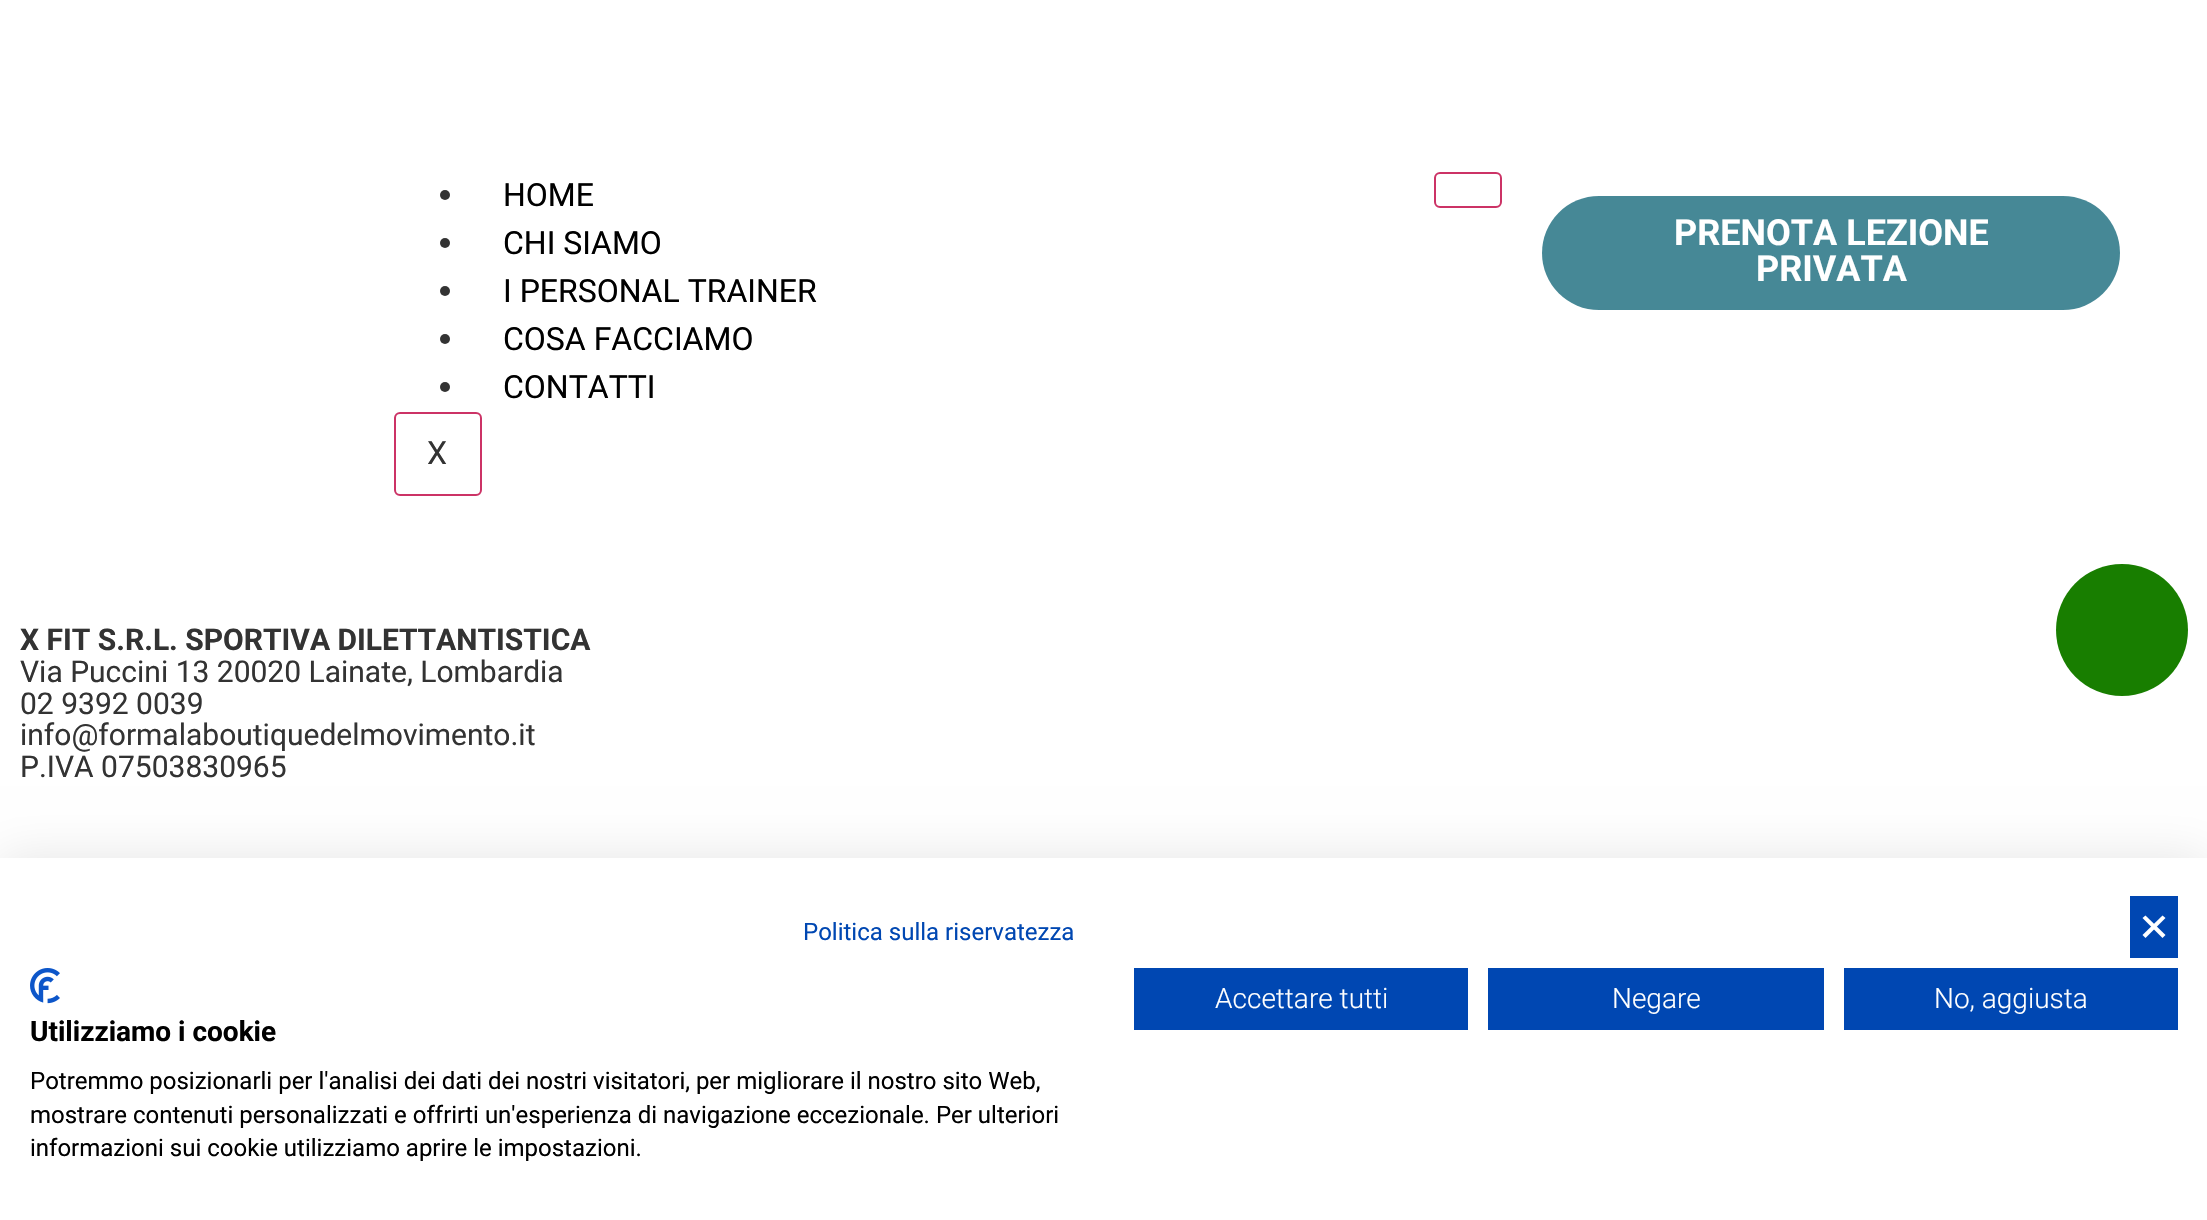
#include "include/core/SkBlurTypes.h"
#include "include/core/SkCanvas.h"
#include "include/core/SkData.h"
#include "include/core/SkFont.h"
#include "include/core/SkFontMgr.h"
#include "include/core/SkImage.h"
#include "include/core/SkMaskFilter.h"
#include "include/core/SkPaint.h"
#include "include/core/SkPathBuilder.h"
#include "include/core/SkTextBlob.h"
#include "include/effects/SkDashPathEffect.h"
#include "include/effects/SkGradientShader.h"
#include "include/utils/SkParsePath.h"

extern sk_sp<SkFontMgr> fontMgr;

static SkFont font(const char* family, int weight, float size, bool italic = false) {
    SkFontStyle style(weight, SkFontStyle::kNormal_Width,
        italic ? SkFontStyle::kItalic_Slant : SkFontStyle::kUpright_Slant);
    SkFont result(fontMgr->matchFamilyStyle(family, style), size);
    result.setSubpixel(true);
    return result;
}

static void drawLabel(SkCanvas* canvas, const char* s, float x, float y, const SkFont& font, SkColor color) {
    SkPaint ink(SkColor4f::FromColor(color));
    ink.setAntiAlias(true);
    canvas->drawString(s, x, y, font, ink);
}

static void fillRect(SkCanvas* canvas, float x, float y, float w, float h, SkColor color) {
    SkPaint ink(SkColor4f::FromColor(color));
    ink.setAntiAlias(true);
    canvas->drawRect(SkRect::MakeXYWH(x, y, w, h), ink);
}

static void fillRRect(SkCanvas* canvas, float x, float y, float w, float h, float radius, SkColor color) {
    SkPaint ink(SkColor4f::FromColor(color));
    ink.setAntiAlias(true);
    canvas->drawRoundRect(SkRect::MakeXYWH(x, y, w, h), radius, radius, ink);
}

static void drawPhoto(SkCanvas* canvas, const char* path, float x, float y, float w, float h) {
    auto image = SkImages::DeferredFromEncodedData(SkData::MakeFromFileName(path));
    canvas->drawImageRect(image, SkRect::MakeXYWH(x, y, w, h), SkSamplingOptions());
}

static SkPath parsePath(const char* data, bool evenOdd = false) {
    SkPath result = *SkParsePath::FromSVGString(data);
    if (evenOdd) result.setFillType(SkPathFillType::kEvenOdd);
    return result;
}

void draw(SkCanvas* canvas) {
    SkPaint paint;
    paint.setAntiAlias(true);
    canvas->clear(0xFFFFFFFF);
    paint.setColor(0xFF333333);
    canvas->drawCircle(445, 195, 5, paint);
    SkFont font1 = font("Roboto", 400, 32);
    drawLabel(canvas, "HOME", 503, 206, font1, 0xFF000000);
    canvas->drawCircle(445, 243, 5, paint);
    drawLabel(canvas, "CHI SIAMO", 503, 254, font1, 0xFF000000);
    canvas->drawCircle(445, 291, 5, paint);
    drawLabel(canvas, "I PERSONAL TRAINER", 503, 302, font1, 0xFF000000);
    canvas->drawCircle(445, 339, 5, paint);
    drawLabel(canvas, "COSA FACCIAMO", 503, 350, font1, 0xFF000000);
    canvas->drawCircle(445, 387, 5, paint);
    drawLabel(canvas, "CONTATTI", 503, 398, font1, 0xFF000000);
    paint.setStroke(true);
    paint.setStrokeWidth(2);
    paint.setColor(0xFFCC3366);
    canvas->drawRoundRect(SkRect::MakeXYWH(395, 413, 86, 82), 5, 5, paint);
    drawLabel(canvas, "X", 427, 464, font1, 0xFF333333);
    canvas->drawRoundRect(SkRect::MakeXYWH(1435, 173, 66, 34), 5, 5, paint);
    fillRRect(canvas, 1542, 196, 578, 114, 57, 0xFF468896);
    SkFont font2 = font("Roboto", 700, 36);
    drawLabel(canvas, "PRENOTA LEZIONE", 1674, 245, font2, 0xFFFFFFFF);
    drawLabel(canvas, "PRIVATA", 1756, 281, font2, 0xFFFFFFFF);
    SkFont font3 = font("Roboto", 700, 30);
    drawLabel(canvas, "X FIT S.R.L. SPORTIVA DILETTANTISTICA", 20, 650, font3, 0xFF333333);
    SkFont font4 = font("Roboto", 400, 30);
    drawLabel(canvas, "Via Puccini 13 20020 Lainate, Lombardia", 20, 682, font4, 0xFF333333);
    drawLabel(canvas, "02 9392 0039", 20, 714, font4, 0xFF333333);
    drawLabel(canvas, "info@formalaboutiquedelmovimento.it", 20, 745, font4, 0xFF333333);
    drawLabel(canvas, "P.IVA 07503830965", 20, 777, font4, 0xFF333333);
    paint.setStroke(false);
    paint.setColor(0xFF187E00);
    canvas->drawCircle(2122, 630, 66, paint);
    paint.setColor(0x1A000000);
    paint.setMaskFilter(SkMaskFilter::MakeBlur(kNormal_SkBlurStyle, 24));
    canvas->drawRect(SkRect::MakeXYWH(0, 858, 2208, 362), paint);
    paint.setMaskFilter(nullptr);
    fillRect(canvas, 0, 858, 2207, 362, 0xFFFFFFFF);
    SkFont font5 = font("Roboto", 400, 24);
    drawLabel(canvas, "Politica sulla riservatezza", 803, 940, font5, 0xFF0047B2);
    fillRect(canvas, 2130, 896, 48, 62, 0xFF0047B2);
    paint.setColor(0xFFFFFFFF);
    canvas->drawPath(parsePath("M2162.5 915.5L2165.5 918L2145.5 938L2142.5 935Z"), paint);
    canvas->drawPath(parsePath("M2142.5 918L2145.5 915.5L2165.5 935L2162.5 938Z"), paint);
    fillRect(canvas, 1134, 968, 334, 62, 0xFF0047B2);
    SkFont font6 = font("Roboto", 300, 28);
    drawLabel(canvas, "Accettare tutti", 1215, 1008, font6, 0xFFFFFFFF);
    fillRect(canvas, 1488, 968, 336, 62, 0xFF0047B2);
    drawLabel(canvas, "Negare", 1612, 1008, font6, 0xFFFFFFFF);
    fillRect(canvas, 1844, 968, 334, 62, 0xFF0047B2);
    drawLabel(canvas, "No, aggiusta", 1934, 1008, font6, 0xFFFFFFFF);
    drawPhoto(canvas, "assets/img1.png", 30, 968, 30, 36);
    SkFont font7 = font("Roboto", 700, 28);
    drawLabel(canvas, "Utilizziamo i cookie", 30, 1041, font7, 0xFF000000);
    drawLabel(canvas, "Potremmo posizionarli per l'analisi dei dati dei nostri visitatori, per migliorare il nostro sito Web,", 30, 1089, font5, 0xFF000000);
    drawLabel(canvas, "mostrare contenuti personalizzati e offrirti un'esperienza di navigazione eccezionale. Per ulteriori", 30, 1123, font5, 0xFF000000);
    drawLabel(canvas, "informazioni sui cookie utilizziamo aprire le impostazioni.", 30, 1156, font5, 0xFF000000);
}
